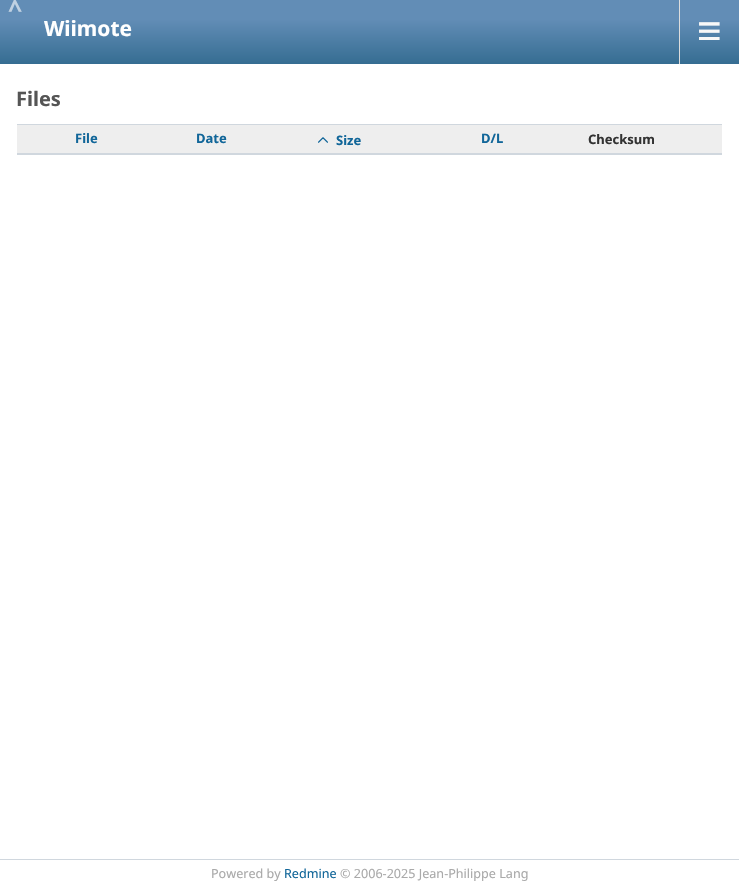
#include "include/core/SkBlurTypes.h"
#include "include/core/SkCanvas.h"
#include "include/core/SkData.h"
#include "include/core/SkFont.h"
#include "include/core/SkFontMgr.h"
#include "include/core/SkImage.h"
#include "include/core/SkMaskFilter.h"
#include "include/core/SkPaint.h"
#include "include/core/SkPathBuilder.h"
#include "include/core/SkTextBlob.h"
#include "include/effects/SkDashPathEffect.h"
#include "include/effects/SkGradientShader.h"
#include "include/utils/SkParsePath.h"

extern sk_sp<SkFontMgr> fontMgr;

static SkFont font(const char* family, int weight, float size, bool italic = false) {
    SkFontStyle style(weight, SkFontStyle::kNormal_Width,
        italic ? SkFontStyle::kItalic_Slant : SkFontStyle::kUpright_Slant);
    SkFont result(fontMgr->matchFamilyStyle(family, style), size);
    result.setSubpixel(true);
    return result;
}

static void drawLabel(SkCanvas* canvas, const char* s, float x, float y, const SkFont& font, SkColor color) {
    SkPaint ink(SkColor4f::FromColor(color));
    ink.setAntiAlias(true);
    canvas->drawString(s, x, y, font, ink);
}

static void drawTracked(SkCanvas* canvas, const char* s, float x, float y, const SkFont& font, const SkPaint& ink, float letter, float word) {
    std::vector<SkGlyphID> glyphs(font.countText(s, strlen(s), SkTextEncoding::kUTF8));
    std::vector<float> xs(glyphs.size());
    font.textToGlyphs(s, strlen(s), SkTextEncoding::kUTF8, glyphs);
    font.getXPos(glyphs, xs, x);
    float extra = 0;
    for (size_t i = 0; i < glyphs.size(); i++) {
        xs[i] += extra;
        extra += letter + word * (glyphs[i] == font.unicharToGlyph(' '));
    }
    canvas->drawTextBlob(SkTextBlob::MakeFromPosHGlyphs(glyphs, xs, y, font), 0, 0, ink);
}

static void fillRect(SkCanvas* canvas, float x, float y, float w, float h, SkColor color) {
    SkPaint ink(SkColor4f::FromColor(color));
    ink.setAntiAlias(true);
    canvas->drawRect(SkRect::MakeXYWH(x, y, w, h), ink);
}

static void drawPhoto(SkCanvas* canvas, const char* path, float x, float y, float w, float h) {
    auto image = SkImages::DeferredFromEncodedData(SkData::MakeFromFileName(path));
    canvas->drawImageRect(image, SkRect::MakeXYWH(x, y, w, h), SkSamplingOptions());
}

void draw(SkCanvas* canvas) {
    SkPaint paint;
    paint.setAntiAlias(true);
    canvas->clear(0xFFFFFFFF);
    {
        const SkColor colors[] = {0xFF628DB6, 0xFF356D92};
        const float stops[] = {0.3f, 1};
        const SkPoint ends[] = {{370, 0}, {370, 64}};
        paint.setShader(SkGradientShader::MakeLinear(ends, colors, stops, 2, SkTileMode::kClamp));
        paint.setAlpha(255);
    }
    canvas->drawRect(SkRect::MakeXYWH(0, 0, 739, 64), paint);
    SkFont font1 = font("Noto Sans", 700, 25);
    paint.setShader(nullptr);
    paint.setColor(0xFFC0D1E2);
    drawTracked(canvas, "^", 8, 18, font1, paint, 4, 0);
    SkFont font2 = font("Noto Sans", 700, 21);
    drawLabel(canvas, "Wiimote", 44, 36, font2, 0xFFFFFFFF);
    fillRect(canvas, 679, 0, 1, 64, 0xFFDDDDDD);
    SkFont font3 = font("Liberation Sans", 400, 42);
    drawLabel(canvas, "≡", 697, 45, font3, 0xFFF8F8F8);
    SkFont font4 = font("Noto Sans", 700, 20);
    drawLabel(canvas, "Files", 16, 106, font4, 0xFF555555);
    fillRect(canvas, 17, 124, 705, 1, 0xFFD0D7DE);
    fillRect(canvas, 17, 154, 705, 1, 0xFFD0D7DE);
    fillRect(canvas, 17, 125, 705, 28, 0xFFEEEEEE);
    SkFont font5 = font("Noto Sans", 700, 13);
    drawLabel(canvas, "File", 75, 143, font5, 0xFF116699);
    drawLabel(canvas, "Date", 196, 143, font5, 0xFF116699);
    drawPhoto(canvas, "assets/img1.png", 318, 137, 10, 6);
    drawLabel(canvas, "Size", 336, 145, font5, 0xFF116699);
    drawLabel(canvas, "D/L", 481, 143, font5, 0xFF116699);
    drawLabel(canvas, "Checksum", 588, 144, font5, 0xFF333333);
    fillRect(canvas, 17, 153, 705, 1, 0xFFD0D7DE);
    fillRect(canvas, 0, 859, 739, 1, 0xFFD0D7DE);
    SkFont font6 = font("Noto Sans", 400, 12.6f);
    drawLabel(canvas, "Powered by", 211, 878, font6, 0xFFAAAAAA);
    drawLabel(canvas, "Redmine", 284, 878, font6, 0xFF116699);
    drawLabel(canvas, "© 2006-2025 Jean-Philippe Lang", 340, 878, font6, 0xFFAAAAAA);
}
